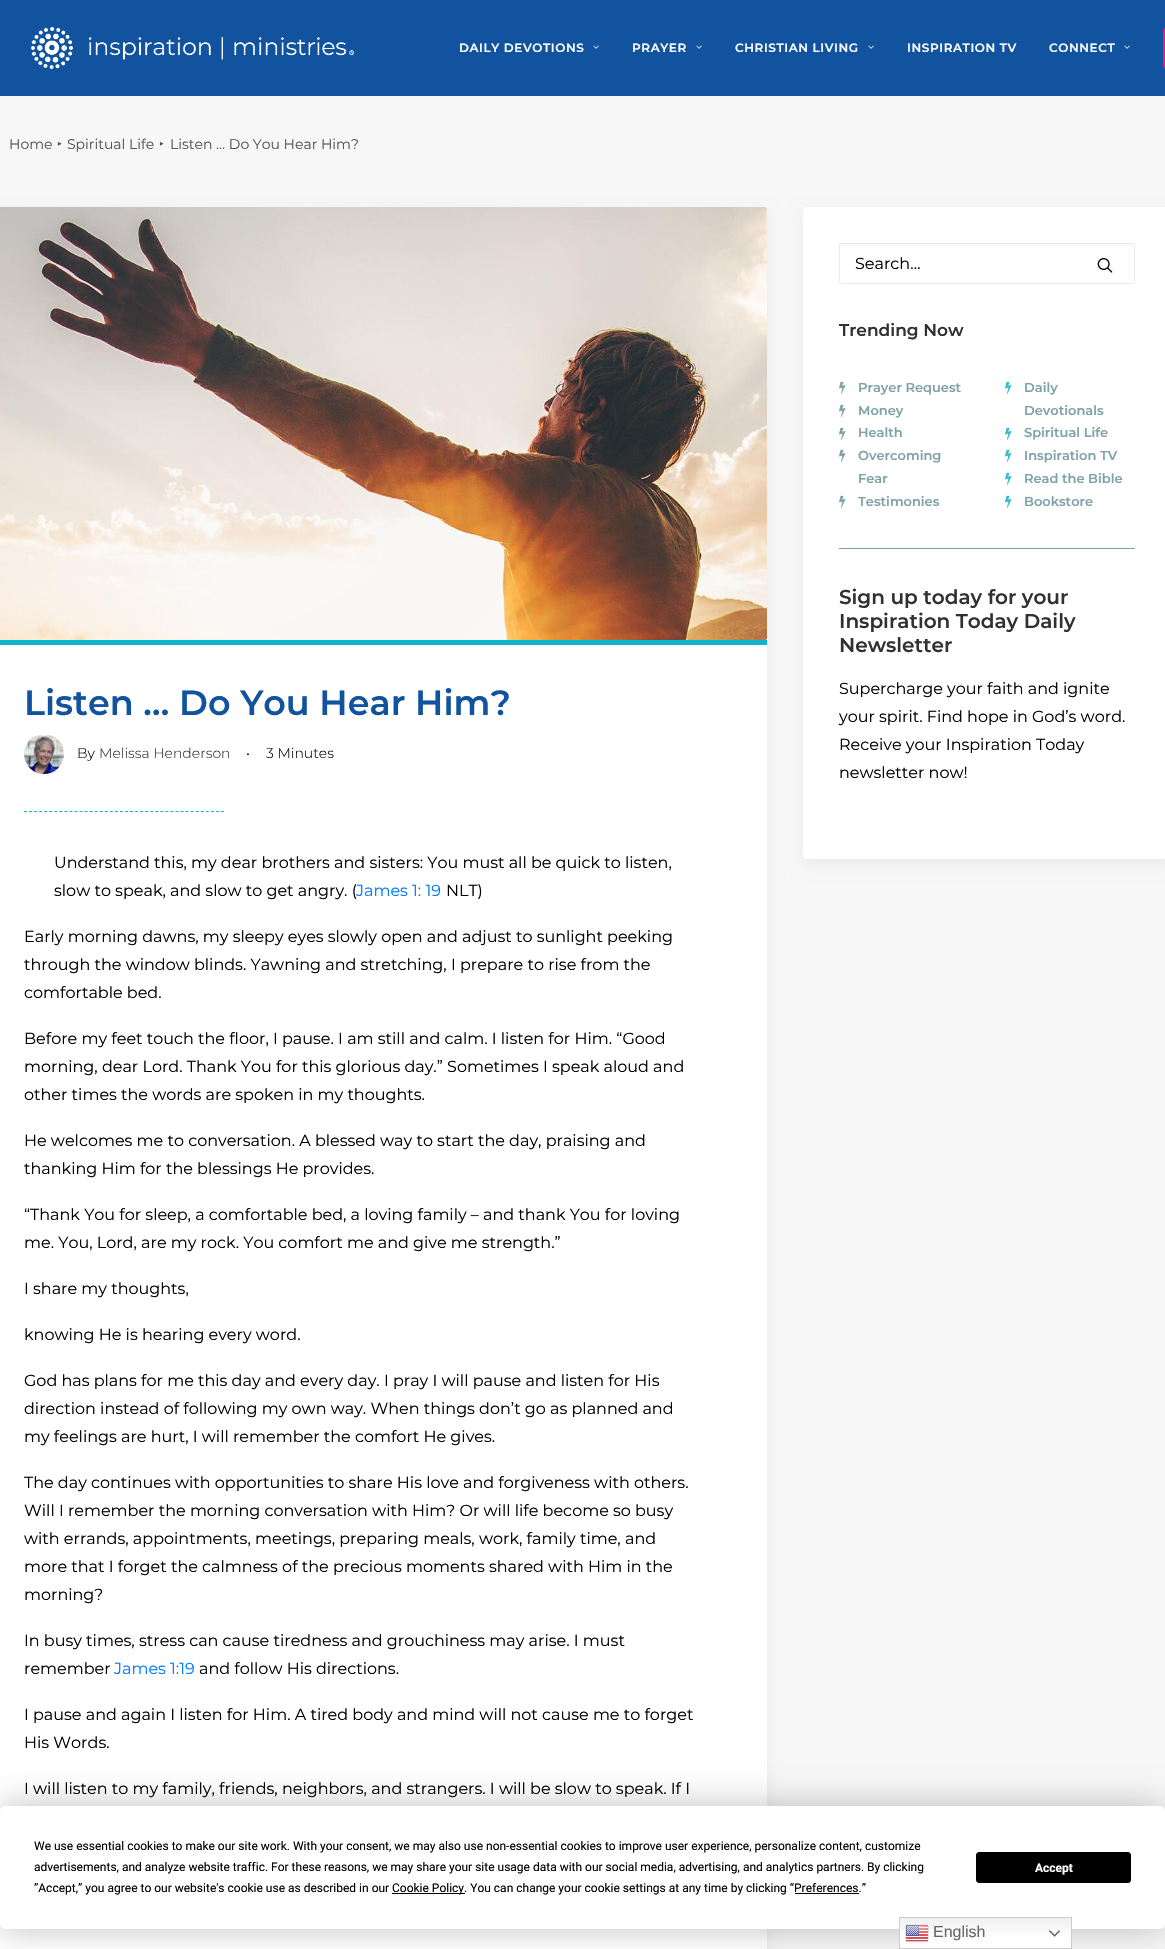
#include "include/core/SkBlurTypes.h"
#include "include/core/SkCanvas.h"
#include "include/core/SkData.h"
#include "include/core/SkFont.h"
#include "include/core/SkFontMgr.h"
#include "include/core/SkImage.h"
#include "include/core/SkMaskFilter.h"
#include "include/core/SkPaint.h"
#include "include/core/SkPathBuilder.h"
#include "include/core/SkTextBlob.h"
#include "include/effects/SkDashPathEffect.h"
#include "include/effects/SkGradientShader.h"
#include "include/utils/SkParsePath.h"

extern sk_sp<SkFontMgr> fontMgr;

static SkFont font(const char* family, int weight, float size, bool italic = false) {
    SkFontStyle style(weight, SkFontStyle::kNormal_Width,
        italic ? SkFontStyle::kItalic_Slant : SkFontStyle::kUpright_Slant);
    SkFont result(fontMgr->matchFamilyStyle(family, style), size);
    result.setSubpixel(true);
    return result;
}

static void drawLabel(SkCanvas* canvas, const char* s, float x, float y, const SkFont& font, SkColor color) {
    SkPaint ink(SkColor4f::FromColor(color));
    ink.setAntiAlias(true);
    canvas->drawString(s, x, y, font, ink);
}

static void drawTracked(SkCanvas* canvas, const char* s, float x, float y, const SkFont& font, const SkPaint& ink, float letter, float word) {
    std::vector<SkGlyphID> glyphs(font.countText(s, strlen(s), SkTextEncoding::kUTF8));
    std::vector<float> xs(glyphs.size());
    font.textToGlyphs(s, strlen(s), SkTextEncoding::kUTF8, glyphs);
    font.getXPos(glyphs, xs, x);
    float extra = 0;
    for (size_t i = 0; i < glyphs.size(); i++) {
        xs[i] += extra;
        extra += letter + word * (glyphs[i] == font.unicharToGlyph(' '));
    }
    canvas->drawTextBlob(SkTextBlob::MakeFromPosHGlyphs(glyphs, xs, y, font), 0, 0, ink);
}

static void fillRect(SkCanvas* canvas, float x, float y, float w, float h, SkColor color) {
    SkPaint ink(SkColor4f::FromColor(color));
    ink.setAntiAlias(true);
    canvas->drawRect(SkRect::MakeXYWH(x, y, w, h), ink);
}

static void fillRRect(SkCanvas* canvas, float x, float y, float w, float h, float radius, SkColor color) {
    SkPaint ink(SkColor4f::FromColor(color));
    ink.setAntiAlias(true);
    canvas->drawRoundRect(SkRect::MakeXYWH(x, y, w, h), radius, radius, ink);
}

static void drawPhoto(SkCanvas* canvas, const char* path, float x, float y, float w, float h) {
    auto image = SkImages::DeferredFromEncodedData(SkData::MakeFromFileName(path));
    canvas->drawImageRect(image, SkRect::MakeXYWH(x, y, w, h), SkSamplingOptions());
}

static SkPath parsePath(const char* data, bool evenOdd = false) {
    SkPath result = *SkParsePath::FromSVGString(data);
    if (evenOdd) result.setFillType(SkPathFillType::kEvenOdd);
    return result;
}

void draw(SkCanvas* canvas) {
    SkPaint paint;
    paint.setAntiAlias(true);
    canvas->clear(0xFFF7F7F7);
    fillRect(canvas, 0, 0, 1165, 96, 0xFF11539E);
    drawPhoto(canvas, "assets/img1.png", 31, 27, 323, 42);
    SkFont font1 = font("Montserrat", 600, 12);
    paint.setColor(0xFFFFFFFF);
    drawTracked(canvas, "DAILY DEVOTIONS", 459, 52, font1, paint, 0.6f, 0);
    drawPhoto(canvas, "assets/img2.png", 593, 45, 6, 4);
    drawTracked(canvas, "PRAYER", 632, 52, font1, paint, 0.6f, 0);
    drawPhoto(canvas, "assets/img2.png", 696, 45, 6, 4);
    drawTracked(canvas, "CHRISTIAN LIVING", 735, 52, font1, paint, 0.6f, 0);
    drawPhoto(canvas, "assets/img2.png", 868, 45, 6, 4);
    drawTracked(canvas, "INSPIRATION TV", 907, 52, font1, paint, 0.6f, 0);
    drawTracked(canvas, "CONNECT", 1049, 52, font1, paint, 0.6f, 0);
    drawPhoto(canvas, "assets/img2.png", 1124, 45, 6, 4);
    paint.setColor(0xFFF9146A);
    canvas->drawPath(parsePath("M1165 28V68C1164 68 1163 67 1163 66V30C1163 29 1164 28 1165 28Z"), paint);
    paint.setStroke(true);
    paint.setStrokeWidth(1);
    canvas->drawRoundRect(SkRect::MakeXYWH(1163.5f, 28.5f, 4, 39), 1.5f, 1.5f, paint);
    SkFont font2 = font("Montserrat", 400, 14);
    drawLabel(canvas, "Home", 9, 149, font2, 0xFF565656);
    SkFont font3 = font("Noto Sans", 400, 14);
    drawLabel(canvas, "‣", 57, 149, font3, 0xFF565656);
    drawLabel(canvas, "Spiritual Life", 67, 149, font2, 0xFF565656);
    drawLabel(canvas, "‣", 159, 149, font3, 0xFF565656);
    drawLabel(canvas, "Listen … Do You Hear Him?", 170, 149, font2, 0xFF565656);
    paint.setStroke(false);
    paint.setColor(0x0D000000);
    paint.setMaskFilter(SkMaskFilter::MakeBlur(kNormal_SkBlurStyle, 7.5f));
    canvas->drawRoundRect(SkRect::MakeXYWH(803, 212, 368, 652), 4, 4, paint);
    paint.setMaskFilter(nullptr);
    paint.setColor(0xFFFFFFFF);
    canvas->drawPath(parsePath("M807 207H1165V859H807C805 859 803 857 803 855V211C803 209 805 207 807 207Z"), paint);
    paint.setColor(0xFFF9F9F9);
    canvas->drawPath(parsePath("M841 244C840 244 840 245 840 246H1133L1134 247C1134 246 1134 244 1133 244Z"), paint);
    paint.setStroke(true);
    paint.setColor(0xFFEAEAEA);
    canvas->drawRoundRect(SkRect::MakeXYWH(839.5f, 243.5f, 295, 40), 1.5f, 1.5f, paint);
    SkFont font4 = font("Montserrat", 400, 16);
    drawLabel(canvas, "Search…", 855, 269, font4, 0xFF000000);
    drawPhoto(canvas, "assets/img3.png", 1097, 258, 16, 15);
    SkFont font5 = font("Montserrat", 600, 17);
    drawLabel(canvas, "Trending Now", 839, 336, font5, 0xFF303133);
    drawPhoto(canvas, "assets/img4.png", 839, 381, 7, 13);
    SkFont font6 = font("Montserrat", 600, 13);
    drawLabel(canvas, "Prayer Request", 858, 392, font6, 0xFF7EA2A9);
    drawPhoto(canvas, "assets/img4.png", 839, 404, 7, 13);
    drawLabel(canvas, "Money", 858, 415, font6, 0xFF7EA2A9);
    drawPhoto(canvas, "assets/img4.png", 839, 427, 7, 13);
    drawLabel(canvas, "Health", 858, 437, font6, 0xFF7EA2A9);
    drawPhoto(canvas, "assets/img4.png", 839, 449, 7, 13);
    drawLabel(canvas, "Overcoming", 858, 460, font6, 0xFF7EA2A9);
    drawLabel(canvas, "Fear", 858, 483, font6, 0xFF7EA2A9);
    drawPhoto(canvas, "assets/img4.png", 839, 495, 7, 13);
    drawLabel(canvas, "Testimonies", 858, 506, font6, 0xFF7EA2A9);
    drawPhoto(canvas, "assets/img5.png", 1005, 381, 7, 13);
    drawLabel(canvas, "Daily", 1024, 392, font6, 0xFF7EA2A9);
    drawLabel(canvas, "Devotionals", 1024, 415, font6, 0xFF7EA2A9);
    drawPhoto(canvas, "assets/img5.png", 1005, 427, 7, 13);
    drawLabel(canvas, "Spiritual Life", 1024, 437, font6, 0xFF7EA2A9);
    drawPhoto(canvas, "assets/img5.png", 1005, 449, 7, 13);
    drawLabel(canvas, "Inspiration TV", 1024, 460, font6, 0xFF7EA2A9);
    drawPhoto(canvas, "assets/img5.png", 1005, 472, 7, 13);
    drawLabel(canvas, "Read the Bible", 1024, 483, font6, 0xFF7EA2A9);
    drawPhoto(canvas, "assets/img5.png", 1005, 495, 7, 13);
    drawLabel(canvas, "Bookstore", 1024, 506, font6, 0xFF7EA2A9);
    fillRect(canvas, 839, 548, 296, 1, 0xFF7EA2A9);
    SkFont font7 = font("Montserrat", 600, 20);
    drawLabel(canvas, "Sign up today for your", 839, 604, font7, 0xFF303133);
    drawLabel(canvas, "Inspiration Today Daily", 839, 628, font7, 0xFF303133);
    drawLabel(canvas, "Newsletter", 839, 652, font7, 0xFF303133);
    drawLabel(canvas, "Supercharge your faith and ignite", 839, 694, font4, 0xFF000000);
    drawLabel(canvas, "your spirit. Find hope in God’s word.", 839, 722, font4, 0xFF000000);
    drawLabel(canvas, "Receive your Inspiration Today", 839, 750, font4, 0xFF000000);
    drawLabel(canvas, "newsletter now!", 839, 778, font4, 0xFF000000);
    paint.setStroke(false);
    paint.setColor(0x0D000000);
    paint.setMaskFilter(SkMaskFilter::MakeBlur(kNormal_SkBlurStyle, 7.5f));
    canvas->drawRoundRect(SkRect::MakeXYWH(-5, 212, 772, 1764), 4, 4, paint);
    paint.setMaskFilter(nullptr);
    paint.setColor(0xFFFFFFFF);
    canvas->drawPath(parsePath("M0 207H763C765 207 767 209 767 211V1949C767 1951 765 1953 763 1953H0Z"), paint);
    drawPhoto(canvas, "assets/img6.png", 0, 207, 767, 433);
    fillRect(canvas, 0, 640, 767, 5, 0xFF0CB4CE);
    SkFont font8 = font("Montserrat", 600, 35);
    drawLabel(canvas, "Listen … Do You Hear Him?", 24, 715, font8, 0xFF11539E);
    drawPhoto(canvas, "assets/img7.png", 24, 734, 40, 40);
    SkFont font9 = font("Montserrat", 300, 14);
    drawLabel(canvas, "By", 77, 758, font9, 0xFF000000);
    drawLabel(canvas, "Melissa Henderson", 99, 758, font9, 0xFF303133);
    drawLabel(canvas, "•", 246, 758, font9, 0xFF000000);
    drawLabel(canvas, "3 Minutes", 266, 758, font9, 0xFF000000);
    paint.setStroke(true);
    paint.setColor(0xFF0CB4CE);
    paint.setPathEffect(SkDashPathEffect::Make({{3, 2.05f}}, 0));
    canvas->drawPath(parsePath("M24 811.5H224"), paint);
    paint.setPathEffect(nullptr);
    drawLabel(canvas, "Understand this, my dear brothers and sisters: You must all be quick to listen,", 54, 868, font4, 0xFF000000);
    drawLabel(canvas, "slow to speak, and slow to get angry. (", 54, 896, font4, 0xFF000000);
    drawLabel(canvas, "James 1: 19", 356, 896, font4, 0xFF007BFF);
    drawLabel(canvas, "NLT)", 446, 896, font4, 0xFF000000);
    drawLabel(canvas, "Early morning dawns, my sleepy eyes slowly open and adjust to sunlight peeking", 24, 942, font4, 0xFF000000);
    drawLabel(canvas, "through the window blinds. Yawning and stretching, I prepare to rise from the", 24, 970, font4, 0xFF000000);
    drawLabel(canvas, "comfortable bed.", 24, 998, font4, 0xFF000000);
    drawLabel(canvas, "Before my feet touch the floor, I pause. I am still and calm. I listen for Him. “Good", 24, 1044, font4, 0xFF000000);
    drawLabel(canvas, "morning, dear Lord. Thank You for this glorious day.” Sometimes I speak aloud and", 24, 1072, font4, 0xFF000000);
    drawLabel(canvas, "other times the words are spoken in my thoughts.", 24, 1100, font4, 0xFF000000);
    drawLabel(canvas, "He welcomes me to conversation. A blessed way to start the day, praising and", 24, 1146, font4, 0xFF000000);
    drawLabel(canvas, "thanking Him for the blessings He provides.", 24, 1174, font4, 0xFF000000);
    drawLabel(canvas, "“Thank You for sleep, a comfortable bed, a loving family – and thank You for loving", 24, 1220, font4, 0xFF000000);
    drawLabel(canvas, "me. You, Lord, are my rock. You comfort me and give me strength.”", 24, 1248, font4, 0xFF000000);
    drawLabel(canvas, "I share my thoughts,", 24, 1294, font4, 0xFF000000);
    drawLabel(canvas, "knowing He is hearing every word.", 24, 1340, font4, 0xFF000000);
    drawLabel(canvas, "God has plans for me this day and every day. I pray I will pause and listen for His", 24, 1386, font4, 0xFF000000);
    drawLabel(canvas, "direction instead of following my own way. When things don’t go as planned and", 24, 1414, font4, 0xFF000000);
    drawLabel(canvas, "my feelings are hurt, I will remember the comfort He gives.", 24, 1442, font4, 0xFF000000);
    drawLabel(canvas, "The day continues with opportunities to share His love and forgiveness with others.", 24, 1488, font4, 0xFF000000);
    drawLabel(canvas, "Will I remember the morning conversation with Him? Or will life become so busy", 24, 1516, font4, 0xFF000000);
    drawLabel(canvas, "with errands, appointments, meetings, preparing meals, work, family time, and", 24, 1544, font4, 0xFF000000);
    drawLabel(canvas, "more that I forget the calmness of the precious moments shared with Him in the", 24, 1572, font4, 0xFF000000);
    drawLabel(canvas, "morning?", 24, 1600, font4, 0xFF000000);
    drawLabel(canvas, "In busy times, stress can cause tiredness and grouchiness may arise. I must", 24, 1646, font4, 0xFF000000);
    drawLabel(canvas, "remember", 24, 1674, font4, 0xFF000000);
    drawLabel(canvas, "James 1:19", 114, 1674, font4, 0xFF007BFF);
    drawLabel(canvas, "and follow His directions.", 199, 1674, font4, 0xFF000000);
    drawLabel(canvas, "I pause and again I listen for Him. A tired body and mind will not cause me to forget", 24, 1720, font4, 0xFF000000);
    drawLabel(canvas, "His Words.", 24, 1748, font4, 0xFF000000);
    drawLabel(canvas, "I will listen to my family, friends, neighbors, and strangers. I will be slow to speak. If I", 24, 1794, font4, 0xFF000000);
    paint.setStroke(false);
    paint.setColor(0x40000000);
    paint.setMaskFilter(SkMaskFilter::MakeBlur(kNormal_SkBlurStyle, 17.5f));
    canvas->drawRoundRect(SkRect::MakeXYWH(0, 1806, 1165, 123), 5, 5, paint);
    paint.setMaskFilter(nullptr);
    fillRRect(canvas, 0, 1806, 1165, 123, 5, 0xFFFFFFFF);
    SkFont font10 = font("Roboto", 400, 12);
    drawLabel(canvas, "We use essential cookies to make our site work. With your consent, we may also use non-essential cookies to improve user experience, personalize content, customize", 34, 1850, font10, 0xFF000000);
    drawLabel(canvas, "advertisements, and analyze website traffic. For these reasons, we may share your site usage data with our social media, advertising, and analytics partners. By clicking", 34, 1871, font10, 0xFF000000);
    drawLabel(canvas, "”Accept,” you agree to our website's cookie use as described in our", 34, 1892, font10, 0xFF000000);
    fillRect(canvas, 392, 1893, 73, 1, 0xFF000000);
    drawLabel(canvas, "Cookie Policy. You can change your cookie settings at any time by clicking “Preferences.”", 392, 1892, font10, 0xFF000000);
    fillRect(canvas, 795, 1893, 64, 1, 0xFF000000);
    paint.setColor(0xFF000000);
    canvas->drawRoundRect(SkRect::MakeXYWH(976.5f, 1852.5f, 154, 30), 2.5f, 2.5f, paint);
    paint.setStroke(true);
    canvas->drawRoundRect(SkRect::MakeXYWH(976.5f, 1852.5f, 154, 30), 2.5f, 2.5f, paint);
    SkFont font11 = font("Roboto", 700, 12);
    drawLabel(canvas, "Accept", 1035, 1872, font11, 0xFFFFFFFF);
    paint.setStroke(false);
    {
        const SkColor colors[] = {0xFFEFEFEF, 0xFFFFFFFF};
        const float stops[] = {0, 0.7f};
        const SkPoint ends[] = {{986, 1917}, {986, 1949}};
        paint.setShader(SkGradientShader::MakeLinear(ends, colors, stops, 2, SkTileMode::kClamp));
        paint.setAlpha(255);
    }
    canvas->drawRect(SkRect::MakeXYWH(900, 1918, 171, 30), paint);
    paint.setStroke(true);
    paint.setShader(nullptr);
    paint.setColor(0xFFCCCCCC);
    canvas->drawRect(SkRect::MakeXYWH(899.5f, 1917.5f, 172, 31), paint);
    drawPhoto(canvas, "assets/img8.png", 905, 1924, 24, 19);
    SkFont font12 = font("Liberation Sans", 400, 16);
    drawLabel(canvas, "English", 933, 1937, font12, 0xFF666666);
    drawPhoto(canvas, "assets/img9.png", 1049, 1930, 11, 7);
}
